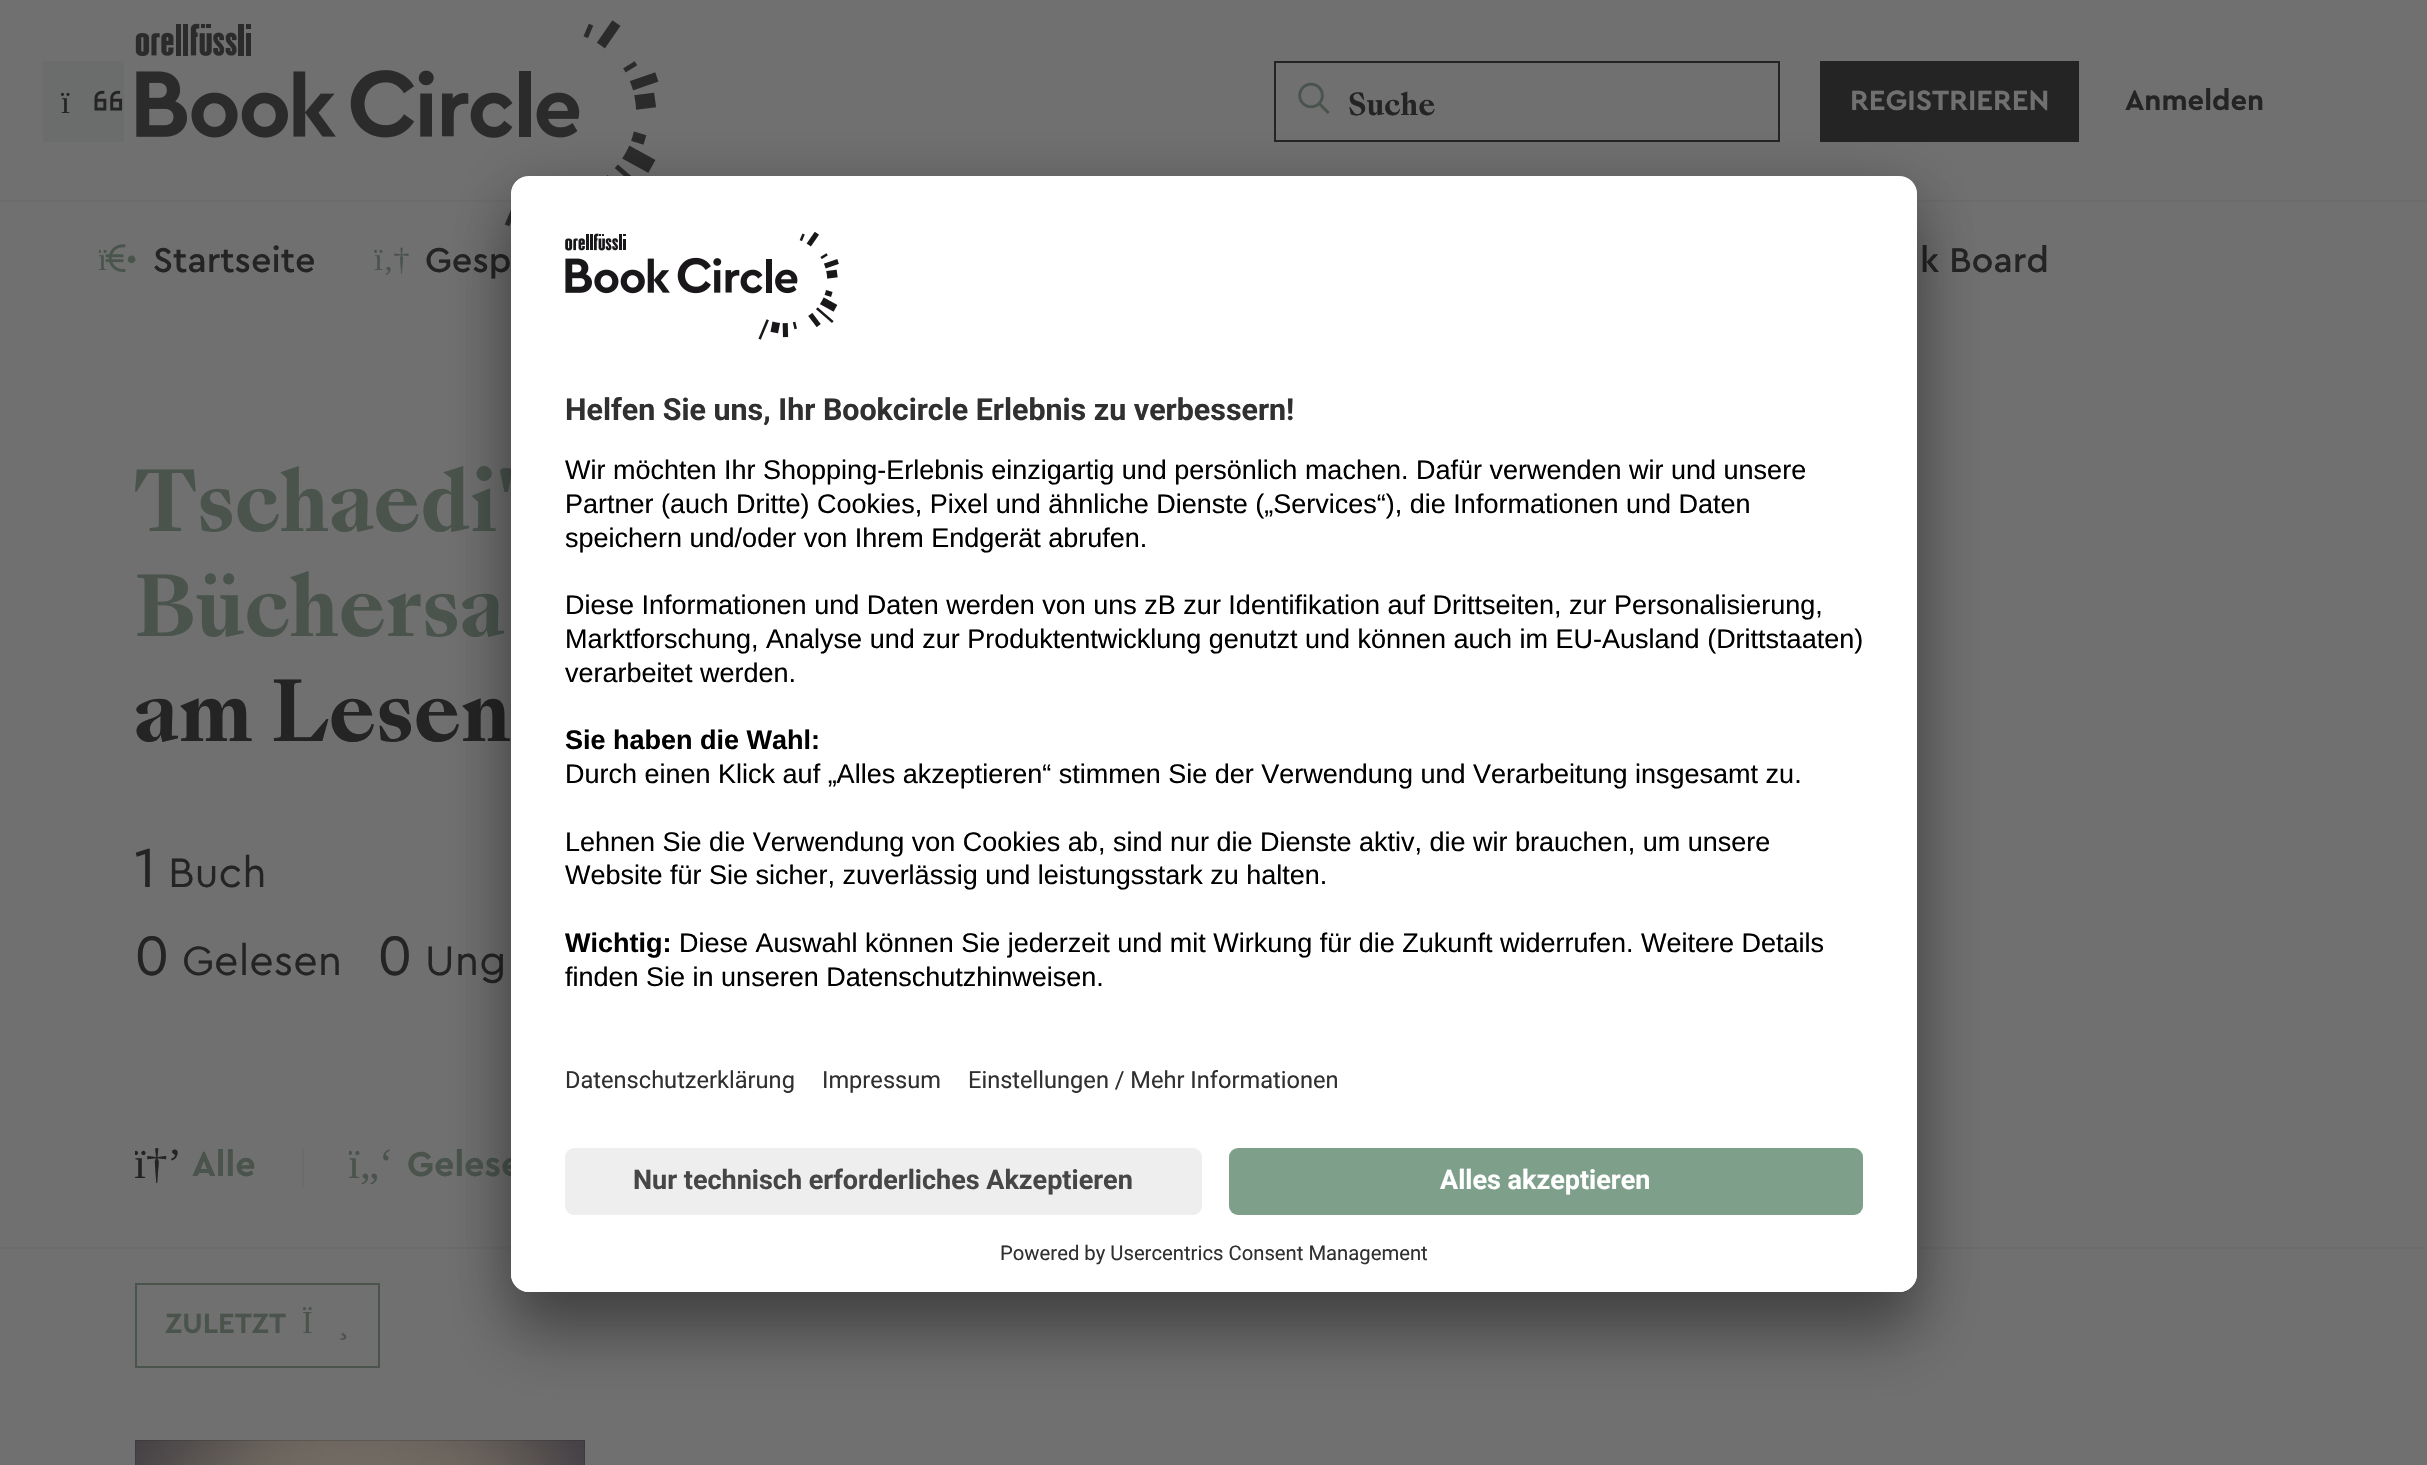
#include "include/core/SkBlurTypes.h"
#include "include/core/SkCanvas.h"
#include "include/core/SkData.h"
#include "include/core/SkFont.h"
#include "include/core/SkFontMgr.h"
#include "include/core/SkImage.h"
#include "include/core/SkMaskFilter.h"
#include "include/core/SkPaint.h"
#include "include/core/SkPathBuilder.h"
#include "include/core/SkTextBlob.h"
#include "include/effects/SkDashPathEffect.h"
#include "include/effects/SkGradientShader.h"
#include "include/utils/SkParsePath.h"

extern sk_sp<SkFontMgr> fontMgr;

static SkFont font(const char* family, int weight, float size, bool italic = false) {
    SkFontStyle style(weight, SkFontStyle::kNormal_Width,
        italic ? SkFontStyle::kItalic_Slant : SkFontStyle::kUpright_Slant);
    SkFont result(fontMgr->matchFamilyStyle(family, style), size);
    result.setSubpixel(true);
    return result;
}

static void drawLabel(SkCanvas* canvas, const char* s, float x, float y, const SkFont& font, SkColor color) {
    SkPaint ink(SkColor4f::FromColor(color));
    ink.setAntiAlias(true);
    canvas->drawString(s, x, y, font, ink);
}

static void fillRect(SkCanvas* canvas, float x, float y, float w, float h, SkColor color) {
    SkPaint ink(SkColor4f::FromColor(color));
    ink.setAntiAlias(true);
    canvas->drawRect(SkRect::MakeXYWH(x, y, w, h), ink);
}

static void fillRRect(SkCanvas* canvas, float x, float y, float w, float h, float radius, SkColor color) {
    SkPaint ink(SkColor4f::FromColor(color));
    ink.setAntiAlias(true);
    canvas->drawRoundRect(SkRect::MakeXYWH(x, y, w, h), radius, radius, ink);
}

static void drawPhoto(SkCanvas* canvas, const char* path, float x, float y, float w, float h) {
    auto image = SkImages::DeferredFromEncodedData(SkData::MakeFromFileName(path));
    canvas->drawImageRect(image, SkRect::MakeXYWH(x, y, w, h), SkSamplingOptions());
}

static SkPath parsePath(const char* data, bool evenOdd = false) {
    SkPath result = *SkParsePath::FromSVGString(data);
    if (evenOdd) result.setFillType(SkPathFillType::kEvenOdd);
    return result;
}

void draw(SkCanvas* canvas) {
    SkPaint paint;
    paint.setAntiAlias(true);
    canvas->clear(0xFF707070);
    fillRect(canvas, 43, 61, 81, 81, 0xFF6B6D6C);
    SkFont font1 = font("Liberation Serif", 400, 32);
    drawLabel(canvas, "ï", 61, 113, font1, 0xFF242424);
    drawPhoto(canvas, "assets/img1.png", 94, 90, 29, 21);
    fillRect(canvas, 0, 200, 2427, 2, 0xFF6B6D6C);
    drawPhoto(canvas, "assets/img2.png", 135, 20, 524, 207);
    paint.setStroke(true);
    paint.setStrokeWidth(2);
    paint.setColor(0xFF242424);
    canvas->drawRect(SkRect::MakeXYWH(1275, 62, 504, 79), paint);
    drawPhoto(canvas, "assets/img3.png", 1298, 82, 32, 33);
    SkFont font2 = font("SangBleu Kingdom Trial", 700, 29.25f);
    drawLabel(canvas, "Suche", 1348, 115, font2, 0xFF242424);
    fillRect(canvas, 1820, 61, 259, 81, 0xFF242424);
    SkFont font3 = font("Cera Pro", 700, 29.25f);
    drawLabel(canvas, "REGISTRIEREN", 1850, 110, font3, 0xFF707070);
    drawLabel(canvas, "Anmelden", 2125, 110, font3, 0xFF242424);
    drawPhoto(canvas, "assets/img4.png", 105, 244, 21, 28);
    canvas->save();
    canvas->clipRect(SkRect::MakeXYWH(99, 221, 2232, 81));
    drawLabel(canvas, "ï", 98, 270, font1, 0xFF4A544D);
    canvas->restore();
    drawLabel(canvas, "•", 126, 270, font1, 0xFF4A544D);
    SkFont font4 = font("Cera Pro", 500, 36);
    drawLabel(canvas, "Startseite", 153, 272, font4, 0xFF242424);
    drawLabel(canvas, "ï‚†", 374, 270, font1, 0xFF4A544D);
    drawLabel(canvas, "Gesp", 425, 272, font4, 0xFF242424);
    drawLabel(canvas, "k Board", 1920, 272, font4, 0xFF242424);
    SkFont font5 = font("SangBleu Kingdom Trial", 700, 81);
    drawLabel(canvas, "Tschaedi'", 134, 531, font5, 0xFF4A544D);
    drawLabel(canvas, "Büchersa", 134, 636, font5, 0xFF4A544D);
    drawLabel(canvas, "am Lesen", 134, 741, font5, 0xFF242424);
    SkFont font6 = font("Cera Pro", 400, 58);
    drawLabel(canvas, "1", 134, 887, font6, 0xFF242424);
    SkFont font7 = font("Cera Pro", 400, 43);
    drawLabel(canvas, "Buch", 168, 887, font7, 0xFF242424);
    drawLabel(canvas, "0", 134, 975, font6, 0xFF242424);
    drawLabel(canvas, "Gelesen", 182, 975, font7, 0xFF242424);
    drawLabel(canvas, "0", 377, 975, font6, 0xFF242424);
    drawLabel(canvas, "Ung", 425, 975, font7, 0xFF242424);
    canvas->save();
    canvas->clipRect(SkRect::MakeXYWH(135, 1121, 122, 90));
    SkFont font8 = font("Liberation Serif", 400, 43);
    drawLabel(canvas, "ï†’", 134, 1178, font8, 0xFF242424);
    canvas->restore();
    SkFont font9 = font("Cera Pro", 700, 36);
    drawLabel(canvas, "Alle", 192, 1176, font9, 0xFF4A544D);
    fillRect(canvas, 302, 1148, 2, 40, 0xFF6B6D6C);
    canvas->save();
    canvas->clipRect(SkRect::MakeXYWH(349, 1121, 193, 90));
    drawLabel(canvas, "ï„‘", 348, 1178, font8, 0xFF4A544D);
    canvas->restore();
    drawLabel(canvas, "Gelese", 407, 1176, font9, 0xFF4A544D);
    fillRect(canvas, 0, 1247, 2427, 2, 0xFF6B6D6C);
    paint.setColor(0xFF4A544D);
    canvas->drawRect(SkRect::MakeXYWH(136, 1284, 243, 83), paint);
    drawLabel(canvas, "ZULETZT", 165, 1333, font3, 0xFF4A544D);
    drawLabel(canvas, "Ï", 302, 1333, font1, 0xFF4A544D);
    drawLabel(canvas, "¸", 338, 1333, font1, 0xFF4A544D);
    drawPhoto(canvas, "assets/img5.png", 135, 1440, 450, 25);
    paint.setStroke(false);
    paint.setColor(0x4D000000);
    paint.setMaskFilter(SkMaskFilter::MakeBlur(kNormal_SkBlurStyle, 31.5f));
    canvas->drawRoundRect(SkRect::MakeXYWH(511, 221, 1406, 1116), 18, 18, paint);
    paint.setMaskFilter(nullptr);
    paint.setColor(0x38000000);
    paint.setMaskFilter(SkMaskFilter::MakeBlur(kNormal_SkBlurStyle, 29));
    canvas->drawRoundRect(SkRect::MakeXYWH(511, 187, 1406, 1116), 18, 18, paint);
    paint.setMaskFilter(nullptr);
    fillRRect(canvas, 511, 176, 1406, 1116, 18, 0xFFFFFFFF);
    canvas->save();
    canvas->clipPath(parsePath("M529 176H1899C1909 176 1917 184 1917 194V1274C1917 1284 1909 1292 1899 1292H529C519 1292 511 1284 511 1274V194C511 184 519 176 529 176Z"), true);
    canvas->clipPath(parsePath("M529 176H1899C1909 176 1917 184 1917 194V1130H511V194C511 184 519 176 529 176Z"), true);
    fillRect(canvas, 511, 178, 1406, 952, 0xFFFFFFFF);
    canvas->restore();
    drawPhoto(canvas, "assets/img6.png", 565, 232, 274, 108);
    SkFont font10 = font("Roboto", 700, 30.4f);
    drawLabel(canvas, "Helfen Sie uns, Ihr Bookcircle Erlebnis zu verbessern!", 565, 420, font10, 0xFF303030);
    SkFont font11 = font("Liberation Sans", 400, 27);
    drawLabel(canvas, "Wir möchten Ihr Shopping-Erlebnis einzigartig und persönlich machen. Dafür verwenden wir und unsere", 565, 479, font11, 0xFF000000);
    drawLabel(canvas, "Partner (auch Dritte) Cookies, Pixel und ähnliche Dienste („Services“), die Informationen und Daten", 565, 513, font11, 0xFF000000);
    drawLabel(canvas, "speichern und/oder von Ihrem Endgerät abrufen.", 565, 547, font11, 0xFF000000);
    drawLabel(canvas, "Diese Informationen und Daten werden von uns zB zur Identifikation auf Drittseiten, zur Personalisierung,", 565, 614, font11, 0xFF000000);
    drawLabel(canvas, "Marktforschung, Analyse und zur Produktentwicklung genutzt und können auch im EU-Ausland (Drittstaaten)", 565, 648, font11, 0xFF000000);
    drawLabel(canvas, "verarbeitet werden.", 565, 682, font11, 0xFF000000);
    SkFont font12 = font("Liberation Sans", 700, 27);
    drawLabel(canvas, "Sie haben die Wahl:", 565, 749, font12, 0xFF000000);
    drawLabel(canvas, "Durch einen Klick auf „Alles akzeptieren“ stimmen Sie der Verwendung und Verarbeitung insgesamt zu.", 565, 783, font11, 0xFF000000);
    drawLabel(canvas, "Lehnen Sie die Verwendung von Cookies ab, sind nur die Dienste aktiv, die wir brauchen, um unsere", 565, 851, font11, 0xFF000000);
    drawLabel(canvas, "Website für Sie sicher, zuverlässig und leistungsstark zu halten.", 565, 884, font11, 0xFF000000);
    drawLabel(canvas, "Wichtig:", 565, 952, font12, 0xFF000000);
    drawLabel(canvas, "Diese Auswahl können Sie jederzeit und mit Wirkung für die Zukunft widerrufen. Weitere Details", 679, 952, font11, 0xFF000000);
    drawLabel(canvas, "finden Sie in unseren Datenschutzhinweisen.", 565, 986, font11, 0xFF000000);
    SkFont font13 = font("Roboto", 400, 23.6f);
    drawLabel(canvas, "Datenschutzerklärung", 565, 1088, font13, 0xFF303030);
    drawLabel(canvas, "Impressum", 822, 1088, font13, 0xFF303030);
    drawLabel(canvas, "Einstellungen / Mehr Informationen", 968, 1088, font13, 0xFF303030);
    paint.setColor(0xFFFFFFFF);
    canvas->drawPath(parsePath("M511 1130H1917V1274C1917 1284 1909 1292 1899 1292H529C519 1292 511 1284 511 1274Z"), paint);
    fillRRect(canvas, 565, 1148, 637, 67, 9, 0xFFEEEEEE);
    SkFont font14 = font("Roboto", 700, 27);
    drawLabel(canvas, "Nur technisch erforderliches Akzeptieren", 633, 1189, font14, 0xFF464646);
    fillRRect(canvas, 1229, 1148, 634, 67, 9, 0xFF7EA08B);
    drawLabel(canvas, "Alles akzeptieren", 1440, 1189, font14, 0xFFFFFFFF);
    SkFont font15 = font("Roboto", 400, 20.25f);
    drawLabel(canvas, "Powered by Usercentrics Consent Management", 1000, 1260, font15, 0xFF303030);
}
